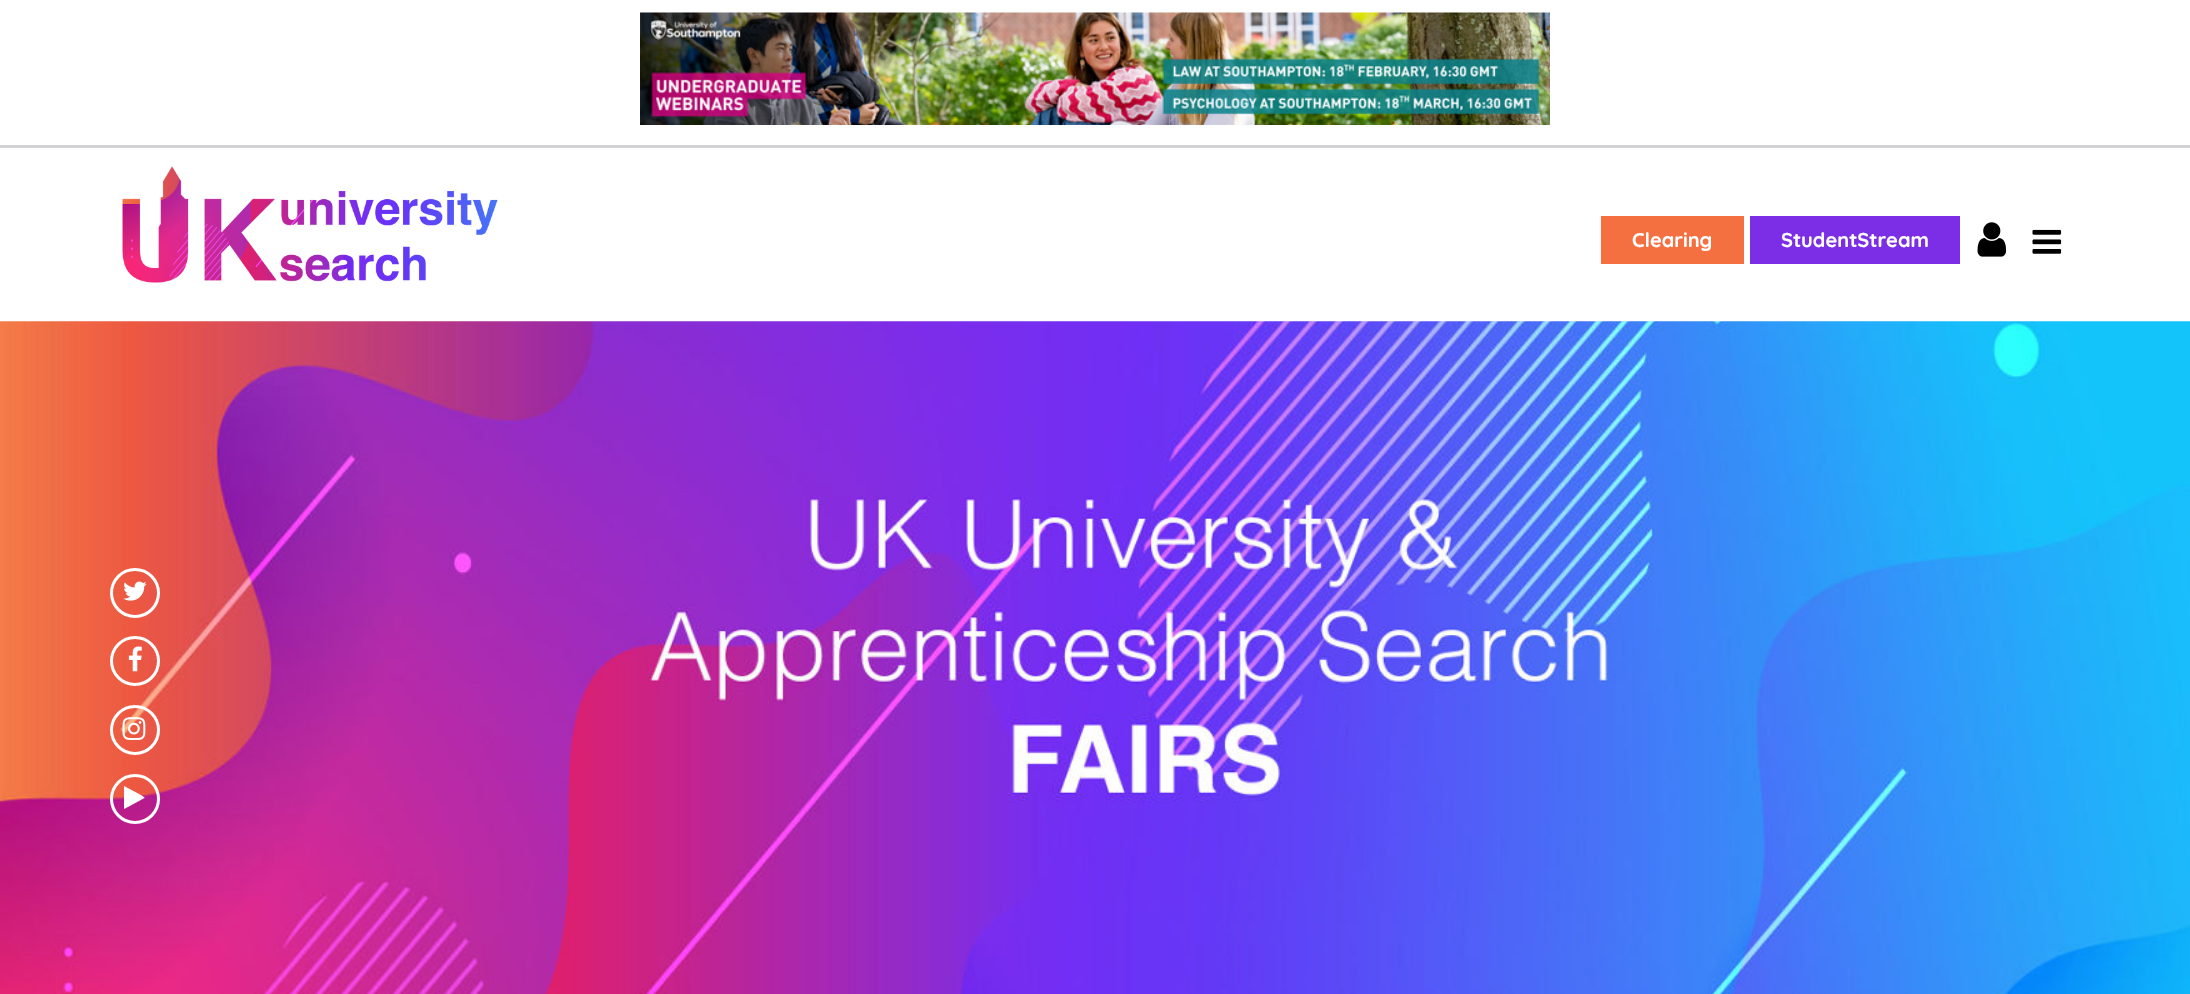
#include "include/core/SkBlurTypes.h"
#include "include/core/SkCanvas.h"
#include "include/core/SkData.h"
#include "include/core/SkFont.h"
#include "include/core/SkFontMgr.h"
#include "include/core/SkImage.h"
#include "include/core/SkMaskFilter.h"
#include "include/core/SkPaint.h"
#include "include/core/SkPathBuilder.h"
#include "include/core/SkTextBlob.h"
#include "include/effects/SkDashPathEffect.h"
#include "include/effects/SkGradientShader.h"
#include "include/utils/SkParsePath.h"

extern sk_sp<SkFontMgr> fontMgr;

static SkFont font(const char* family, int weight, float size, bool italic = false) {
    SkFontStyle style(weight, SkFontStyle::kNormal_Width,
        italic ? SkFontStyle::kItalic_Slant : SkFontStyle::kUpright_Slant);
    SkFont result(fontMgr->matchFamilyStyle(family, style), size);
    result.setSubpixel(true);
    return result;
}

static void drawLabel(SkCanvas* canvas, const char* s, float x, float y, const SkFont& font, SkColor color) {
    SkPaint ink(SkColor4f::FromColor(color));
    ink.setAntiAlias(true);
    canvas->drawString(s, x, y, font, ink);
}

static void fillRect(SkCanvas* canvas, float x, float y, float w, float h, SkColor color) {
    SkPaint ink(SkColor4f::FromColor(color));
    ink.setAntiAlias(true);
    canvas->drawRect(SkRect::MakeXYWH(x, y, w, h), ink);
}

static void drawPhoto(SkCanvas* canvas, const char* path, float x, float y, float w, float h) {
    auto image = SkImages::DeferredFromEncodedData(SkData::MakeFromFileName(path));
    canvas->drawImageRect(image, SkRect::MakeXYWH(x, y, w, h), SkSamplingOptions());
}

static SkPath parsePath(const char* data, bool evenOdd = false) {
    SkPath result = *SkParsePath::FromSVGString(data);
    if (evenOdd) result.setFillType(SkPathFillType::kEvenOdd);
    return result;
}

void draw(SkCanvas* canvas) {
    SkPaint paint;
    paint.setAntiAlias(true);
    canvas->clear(0xFFFFFFFF);
    drawPhoto(canvas, "assets/img1.png", 640, 12, 910, 113);
    fillRect(canvas, 0, 145, 2190, 3, 0xFFD2D2D4);
    drawPhoto(canvas, "assets/img2.png", 122, 166, 376, 117);
    fillRect(canvas, 1601, 216, 143, 48, 0xFFF47041);
    SkFont font1 = font("Quicksand", 700, 20);
    drawLabel(canvas, "Clearing", 1632, 247, font1, 0xFFFFFFFF);
    fillRect(canvas, 1750, 216, 210, 48, 0xFF7B2EE6);
    drawLabel(canvas, "StudentStream", 1781, 247, font1, 0xFFFFFFFF);
    drawPhoto(canvas, "assets/img3.png", 1977, 222, 30, 35);
    drawPhoto(canvas, "assets/img4.png", 2032, 229, 30, 25);
    drawPhoto(canvas, "assets/img5.png", 0, 321, 2190, 673);
    paint.setStroke(true);
    paint.setStrokeWidth(3);
    paint.setColor(0xFFFFFFFF);
    canvas->drawCircle(135, 593, 23.5f, paint);
    drawPhoto(canvas, "assets/img6.png", 123, 581, 24, 20);
    canvas->drawCircle(135, 661, 23.5f, paint);
    drawPhoto(canvas, "assets/img7.png", 128, 646, 14, 26);
    canvas->drawCircle(135, 730, 23.5f, paint);
    drawPhoto(canvas, "assets/img8.png", 122, 717, 24, 23);
    canvas->drawCircle(135, 799, 23.5f, paint);
    paint.setStroke(false);
    canvas->drawPath(parsePath("M144.5 798L128 807C127.5 807 124.5 809.5 124 808.5V786L141 795L144.5 797.5Z"), paint);
}
